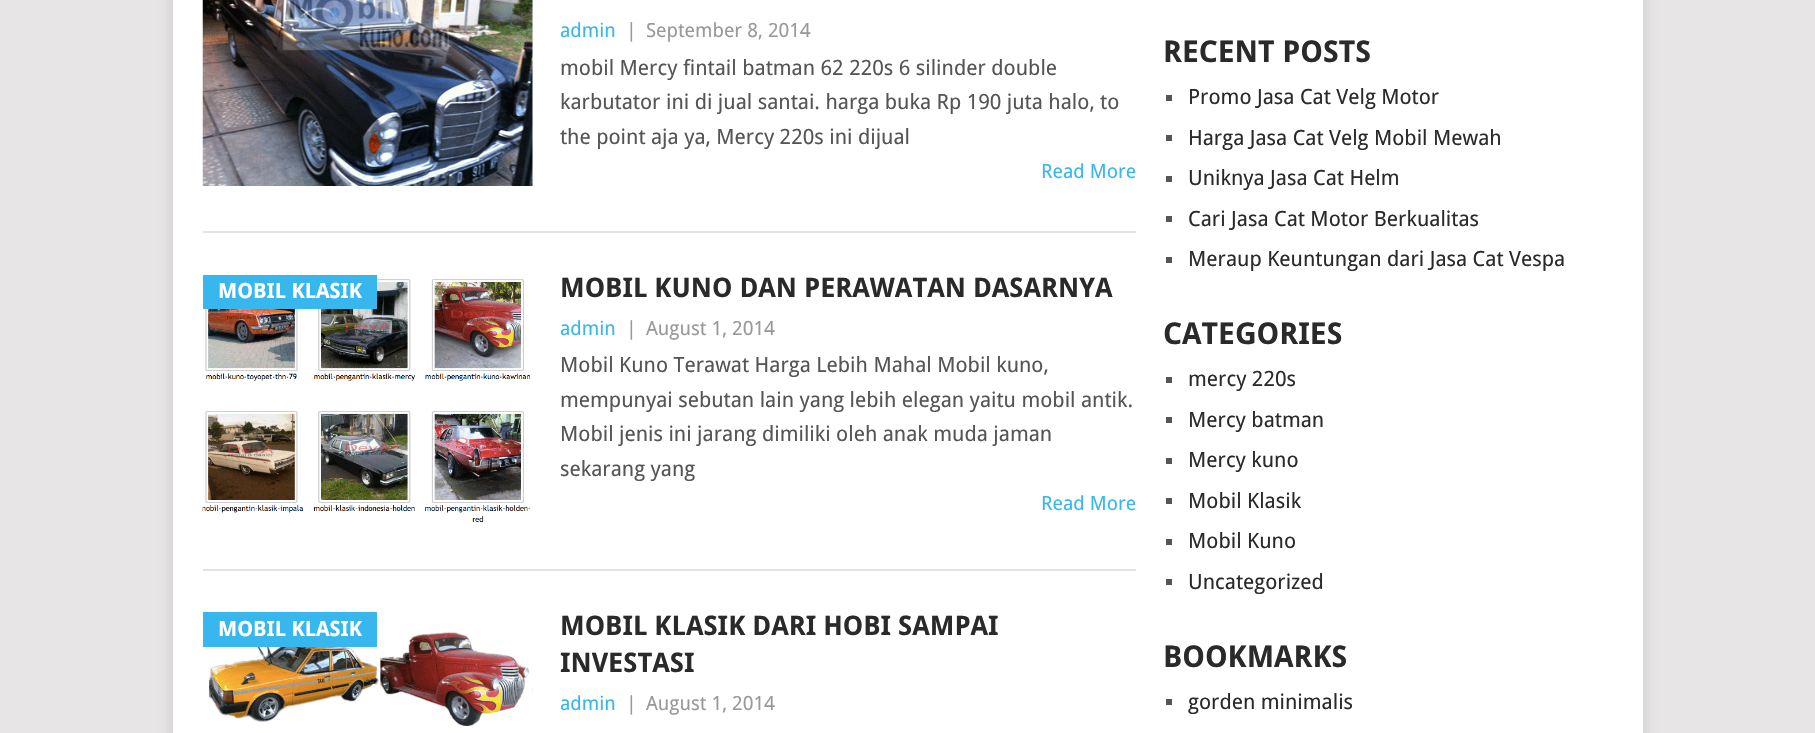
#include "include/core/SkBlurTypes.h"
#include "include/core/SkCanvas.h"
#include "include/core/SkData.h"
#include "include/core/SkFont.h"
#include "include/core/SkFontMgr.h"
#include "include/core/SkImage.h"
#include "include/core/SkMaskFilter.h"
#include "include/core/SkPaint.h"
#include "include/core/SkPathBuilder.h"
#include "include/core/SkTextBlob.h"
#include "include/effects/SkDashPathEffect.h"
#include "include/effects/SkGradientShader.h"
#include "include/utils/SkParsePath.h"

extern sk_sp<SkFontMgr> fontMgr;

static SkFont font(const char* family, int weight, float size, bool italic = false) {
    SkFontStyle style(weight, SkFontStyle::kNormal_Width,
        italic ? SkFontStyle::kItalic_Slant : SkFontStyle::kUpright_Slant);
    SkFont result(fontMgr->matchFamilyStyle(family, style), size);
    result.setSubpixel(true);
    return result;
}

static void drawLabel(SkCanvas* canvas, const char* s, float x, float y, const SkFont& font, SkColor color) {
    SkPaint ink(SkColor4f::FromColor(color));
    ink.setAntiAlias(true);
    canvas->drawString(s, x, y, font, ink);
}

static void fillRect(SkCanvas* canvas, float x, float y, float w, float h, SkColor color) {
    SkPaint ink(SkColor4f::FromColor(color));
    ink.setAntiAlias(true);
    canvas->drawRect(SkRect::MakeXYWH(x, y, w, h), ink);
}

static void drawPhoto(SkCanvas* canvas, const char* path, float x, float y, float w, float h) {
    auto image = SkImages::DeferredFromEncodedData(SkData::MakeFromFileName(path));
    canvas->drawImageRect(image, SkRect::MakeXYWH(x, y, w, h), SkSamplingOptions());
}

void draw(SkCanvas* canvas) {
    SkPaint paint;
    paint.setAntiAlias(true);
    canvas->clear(0xFFE7E5E6);
    paint.setColor(0x2B323232);
    paint.setMaskFilter(SkMaskFilter::MakeBlur(kNormal_SkBlurStyle, 7.5f));
    canvas->drawRect(SkRect::MakeXYWH(173, -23, 1470, 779), paint);
    paint.setMaskFilter(nullptr);
    fillRect(canvas, 173, 0, 1470, 733, 0xFFFFFFFF);
    fillRect(canvas, 203, 231, 933, 2, 0xFFE2E2E2);
    drawPhoto(canvas, "assets/img1.png", 202, 0, 331, 186);
    SkFont font1 = font("Droid Sans", 400, 19.5f);
    drawLabel(canvas, "admin", 560, 37, font1, 0xFF38B7EE);
    drawLabel(canvas, "|", 626, 37, font1, 0xFF999999);
    drawLabel(canvas, "September 8, 2014", 646, 37, font1, 0xFF999999);
    SkFont font2 = font("Droid Sans", 400, 21);
    drawLabel(canvas, "mobil Mercy fintail batman 62 220s 6 silinder double", 560, 75, font2, 0xFF555555);
    drawLabel(canvas, "karbutator ini di jual santai. harga buka Rp 190 juta halo, to", 560, 109, font2, 0xFF555555);
    drawLabel(canvas, "the point aja ya, Mercy 220s ini dijual", 560, 144, font2, 0xFF555555);
    drawLabel(canvas, "Read More", 1041, 178, font1, 0xFF38B7EE);
    fillRect(canvas, 203, 569, 933, 2, 0xFFE2E2E2);
    drawPhoto(canvas, "assets/img2.png", 202, 279, 329, 244);
    fillRect(canvas, 203, 275, 174, 34, 0xFF38B7EE);
    SkFont font3 = font("Droid Sans", 700, 21);
    drawLabel(canvas, "MOBIL KLASIK", 218, 298, font3, 0xFFFFFFFF);
    SkFont font4 = font("Droid Sans", 700, 27);
    drawLabel(canvas, "MOBIL KUNO DAN PERAWATAN DASARNYA", 560, 297, font4, 0xFF2A2A2A);
    drawLabel(canvas, "admin", 560, 335, font1, 0xFF38B7EE);
    drawLabel(canvas, "|", 626, 335, font1, 0xFF999999);
    drawLabel(canvas, "August 1, 2014", 646, 335, font1, 0xFF999999);
    drawLabel(canvas, "Mobil Kuno Terawat Harga Lebih Mahal Mobil kuno,", 560, 372, font2, 0xFF555555);
    drawLabel(canvas, "mempunyai sebutan lain yang lebih elegan yaitu mobil antik.", 560, 407, font2, 0xFF555555);
    drawLabel(canvas, "Mobil jenis ini jarang dimiliki oleh anak muda jaman", 560, 441, font2, 0xFF555555);
    drawLabel(canvas, "sekarang yang", 560, 476, font2, 0xFF555555);
    drawLabel(canvas, "Read More", 1041, 510, font1, 0xFF38B7EE);
    drawPhoto(canvas, "assets/img3.png", 209, 632, 324, 94);
    fillRect(canvas, 203, 612, 174, 35, 0xFF38B7EE);
    drawLabel(canvas, "MOBIL KLASIK", 218, 636, font3, 0xFFFFFFFF);
    drawLabel(canvas, "MOBIL KLASIK DARI HOBI SAMPAI", 560, 635, font4, 0xFF2A2A2A);
    drawLabel(canvas, "INVESTASI", 560, 672, font4, 0xFF2A2A2A);
    drawLabel(canvas, "admin", 560, 710, font1, 0xFF38B7EE);
    drawLabel(canvas, "|", 626, 710, font1, 0xFF999999);
    drawLabel(canvas, "August 1, 2014", 646, 710, font1, 0xFF999999);
    SkFont font5 = font("Droid Sans", 700, 30);
    drawLabel(canvas, "RECENT POSTS", 1163, 62, font5, 0xFF2A2A2A);
    fillRect(canvas, 1166, 95, 6, 6, 0xFF555555);
    drawLabel(canvas, "Promo Jasa Cat Velg Motor", 1188, 104, font2, 0xFF2A2A2A);
    fillRect(canvas, 1166, 135, 6, 6, 0xFF555555);
    drawLabel(canvas, "Harga Jasa Cat Velg Mobil Mewah", 1188, 145, font2, 0xFF2A2A2A);
    fillRect(canvas, 1166, 176, 6, 6, 0xFF555555);
    drawLabel(canvas, "Uniknya Jasa Cat Helm", 1188, 185, font2, 0xFF2A2A2A);
    fillRect(canvas, 1166, 216, 6, 6, 0xFF555555);
    drawLabel(canvas, "Cari Jasa Cat Motor Berkualitas", 1188, 226, font2, 0xFF2A2A2A);
    fillRect(canvas, 1166, 257, 6, 6, 0xFF555555);
    drawLabel(canvas, "Meraup Keuntungan dari Jasa Cat Vespa", 1188, 266, font2, 0xFF2A2A2A);
    drawLabel(canvas, "CATEGORIES", 1163, 344, font5, 0xFF2A2A2A);
    fillRect(canvas, 1166, 377, 6, 6, 0xFF555555);
    drawLabel(canvas, "mercy 220s", 1188, 386, font2, 0xFF2A2A2A);
    fillRect(canvas, 1166, 417, 6, 6, 0xFF555555);
    drawLabel(canvas, "Mercy batman", 1188, 427, font2, 0xFF2A2A2A);
    fillRect(canvas, 1166, 458, 6, 6, 0xFF555555);
    drawLabel(canvas, "Mercy kuno", 1188, 467, font2, 0xFF2A2A2A);
    fillRect(canvas, 1166, 498, 6, 6, 0xFF555555);
    drawLabel(canvas, "Mobil Klasik", 1188, 508, font2, 0xFF2A2A2A);
    fillRect(canvas, 1166, 539, 6, 6, 0xFF555555);
    drawLabel(canvas, "Mobil Kuno", 1188, 548, font2, 0xFF2A2A2A);
    fillRect(canvas, 1166, 579, 6, 6, 0xFF555555);
    drawLabel(canvas, "Uncategorized", 1188, 589, font2, 0xFF2A2A2A);
    drawLabel(canvas, "BOOKMARKS", 1163, 667, font5, 0xFF2A2A2A);
    fillRect(canvas, 1166, 699, 6, 6, 0xFF555555);
    drawLabel(canvas, "gorden minimalis", 1188, 709, font2, 0xFF2A2A2A);
}
